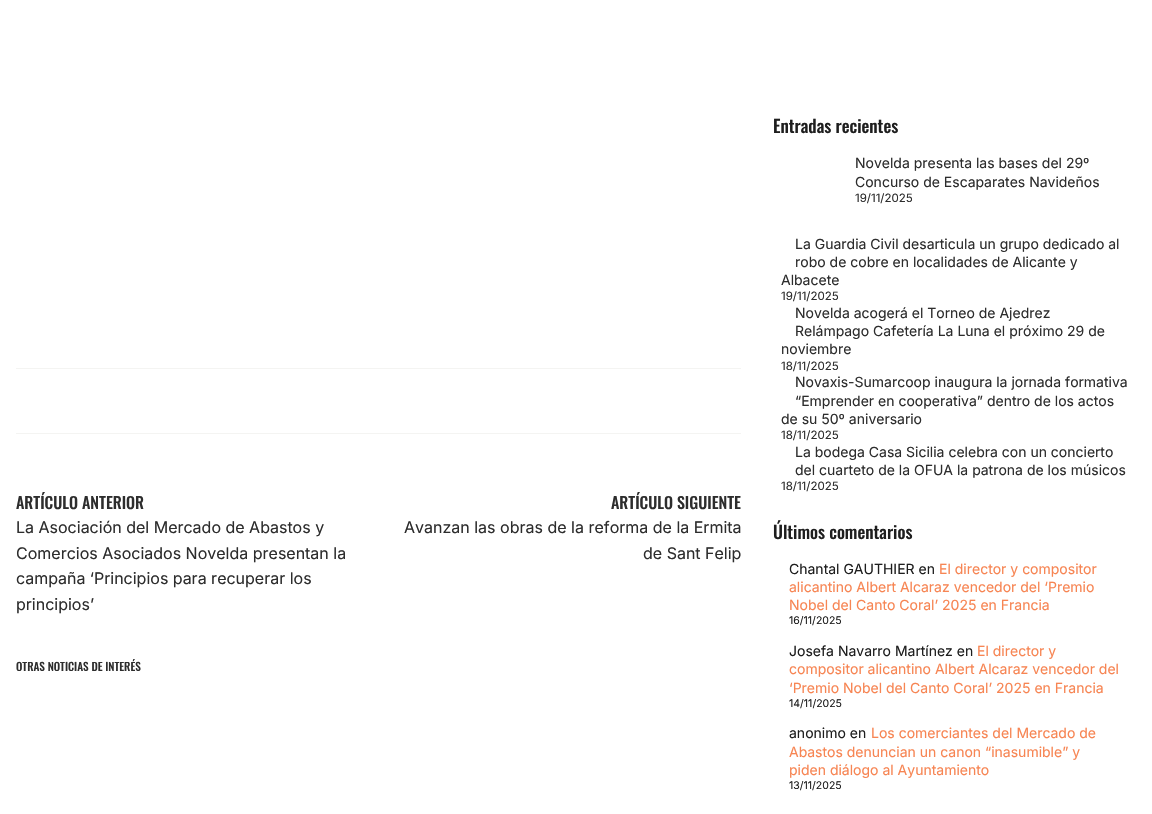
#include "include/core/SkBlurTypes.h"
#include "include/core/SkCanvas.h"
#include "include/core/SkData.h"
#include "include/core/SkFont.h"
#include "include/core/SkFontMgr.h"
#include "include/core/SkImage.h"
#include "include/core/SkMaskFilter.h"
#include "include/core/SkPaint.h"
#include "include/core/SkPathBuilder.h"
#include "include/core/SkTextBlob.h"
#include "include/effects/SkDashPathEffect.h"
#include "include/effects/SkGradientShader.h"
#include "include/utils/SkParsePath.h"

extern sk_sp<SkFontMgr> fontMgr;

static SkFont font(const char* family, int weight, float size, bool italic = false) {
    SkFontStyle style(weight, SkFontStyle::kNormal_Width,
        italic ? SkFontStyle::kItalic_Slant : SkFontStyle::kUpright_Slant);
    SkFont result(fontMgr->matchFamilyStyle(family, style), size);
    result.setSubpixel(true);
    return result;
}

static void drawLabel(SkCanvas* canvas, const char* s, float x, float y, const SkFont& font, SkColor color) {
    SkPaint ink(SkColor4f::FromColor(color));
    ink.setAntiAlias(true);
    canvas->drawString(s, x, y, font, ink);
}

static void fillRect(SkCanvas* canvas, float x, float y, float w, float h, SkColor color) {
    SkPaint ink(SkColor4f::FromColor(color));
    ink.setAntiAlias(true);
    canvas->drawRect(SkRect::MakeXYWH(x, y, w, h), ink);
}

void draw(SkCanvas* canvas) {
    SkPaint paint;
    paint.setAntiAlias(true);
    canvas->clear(0xFFFFFFFF);
    fillRect(canvas, 16, 368, 725, 1, 0xFFF4F4F2);
    fillRect(canvas, 16, 433, 725, 1, 0xFFF4F4F2);
    SkFont font1 = font("Oswald", 500, 16);
    drawLabel(canvas, "ARTÍCULO ANTERIOR", 16, 509, font1, 0xFF2D2D2D);
    SkFont font2 = font("Inter", 400, 16);
    drawLabel(canvas, "La Asociación del Mercado de Abastos y", 16, 533, font2, 0xFF2D2D2D);
    drawLabel(canvas, "Comercios Asociados Novelda presentan la", 16, 559, font2, 0xFF2D2D2D);
    drawLabel(canvas, "campaña ‘Principios para recuperar los", 16, 584, font2, 0xFF2D2D2D);
    drawLabel(canvas, "principios’", 16, 610, font2, 0xFF2D2D2D);
    drawLabel(canvas, "ARTÍCULO SIGUIENTE", 611, 509, font1, 0xFF2D2D2D);
    drawLabel(canvas, "Avanzan las obras de la reforma de la Ermita", 404, 533, font2, 0xFF2D2D2D);
    drawLabel(canvas, "de Sant Felip", 643, 559, font2, 0xFF2D2D2D);
    SkFont font3 = font("Oswald", 500, 11.25f);
    drawLabel(canvas, "OTRAS NOTICIAS DE INTERÉS", 16, 671, font3, 0xFF2D2D2D);
    SkFont font4 = font("Oswald", 500, 17.5f);
    drawLabel(canvas, "Entradas recientes", 773, 133, font4, 0xFF1E1E1E);
    SkFont font5 = font("Inter", 400, 14);
    drawLabel(canvas, "Novelda presenta las bases del 29º", 855, 168, font5, 0xFF2D2D2D);
    drawLabel(canvas, "Concurso de Escaparates Navideños", 855, 187, font5, 0xFF2D2D2D);
    SkFont font6 = font("Inter", 400, 11.5f);
    drawLabel(canvas, "19/11/2025", 855, 202, font6, 0xFF2D2D2D);
    drawLabel(canvas, "La Guardia Civil desarticula un grupo dedicado al", 795, 249, font5, 0xFF2D2D2D);
    drawLabel(canvas, "robo de cobre en localidades de Alicante y", 795, 267, font5, 0xFF2D2D2D);
    drawLabel(canvas, "Albacete", 781, 285, font5, 0xFF2D2D2D);
    drawLabel(canvas, "19/11/2025", 781, 300, font6, 0xFF2D2D2D);
    drawLabel(canvas, "Novelda acogerá el Torneo de Ajedrez", 795, 318, font5, 0xFF2D2D2D);
    drawLabel(canvas, "Relámpago Cafetería La Luna el próximo 29 de", 795, 336, font5, 0xFF2D2D2D);
    drawLabel(canvas, "noviembre", 781, 354, font5, 0xFF2D2D2D);
    drawLabel(canvas, "18/11/2025", 781, 370, font6, 0xFF2D2D2D);
    drawLabel(canvas, "Novaxis-Sumarcoop inaugura la jornada formativa", 795, 387, font5, 0xFF2D2D2D);
    drawLabel(canvas, "“Emprender en cooperativa” dentro de los actos", 795, 406, font5, 0xFF2D2D2D);
    drawLabel(canvas, "de su 50º aniversario", 781, 424, font5, 0xFF2D2D2D);
    drawLabel(canvas, "18/11/2025", 781, 439, font6, 0xFF2D2D2D);
    drawLabel(canvas, "La bodega Casa Sicilia celebra con un concierto", 795, 457, font5, 0xFF2D2D2D);
    drawLabel(canvas, "del cuarteto de la OFUA la patrona de los músicos", 795, 475, font5, 0xFF2D2D2D);
    drawLabel(canvas, "18/11/2025", 781, 490, font6, 0xFF2D2D2D);
    drawLabel(canvas, "Últimos comentarios", 773, 539, font4, 0xFF1E1E1E);
    drawLabel(canvas, "Chantal GAUTHIER en", 789, 574, font5, 0xFF1E1E1E);
    drawLabel(canvas, "El director y compositor", 939, 574, font5, 0xFFF78553);
    drawLabel(canvas, "alicantino Albert Alcaraz vencedor del ‘Premio", 789, 592, font5, 0xFFF78553);
    drawLabel(canvas, "Nobel del Canto Coral’ 2025 en Francia", 789, 610, font5, 0xFFF78553);
    SkFont font7 = font("Inter", 400, 10.5f);
    drawLabel(canvas, "16/11/2025", 789, 624, font7, 0xFF1E1E1E);
    drawLabel(canvas, "Josefa Navarro Martínez en", 789, 656, font5, 0xFF1E1E1E);
    drawLabel(canvas, "El director y", 977, 656, font5, 0xFFF78553);
    drawLabel(canvas, "compositor alicantino Albert Alcaraz vencedor del", 789, 674, font5, 0xFFF78553);
    drawLabel(canvas, "‘Premio Nobel del Canto Coral’ 2025 en Francia", 789, 693, font5, 0xFFF78553);
    drawLabel(canvas, "14/11/2025", 789, 707, font7, 0xFF1E1E1E);
    drawLabel(canvas, "anonimo en", 789, 738, font5, 0xFF1E1E1E);
    drawLabel(canvas, "Los comerciantes del Mercado de", 871, 738, font5, 0xFFF78553);
    drawLabel(canvas, "Abastos denuncian un canon “inasumible” y", 789, 757, font5, 0xFFF78553);
    drawLabel(canvas, "piden diálogo al Ayuntamiento", 789, 775, font5, 0xFFF78553);
    drawLabel(canvas, "13/11/2025", 789, 789, font7, 0xFF1E1E1E);
}
